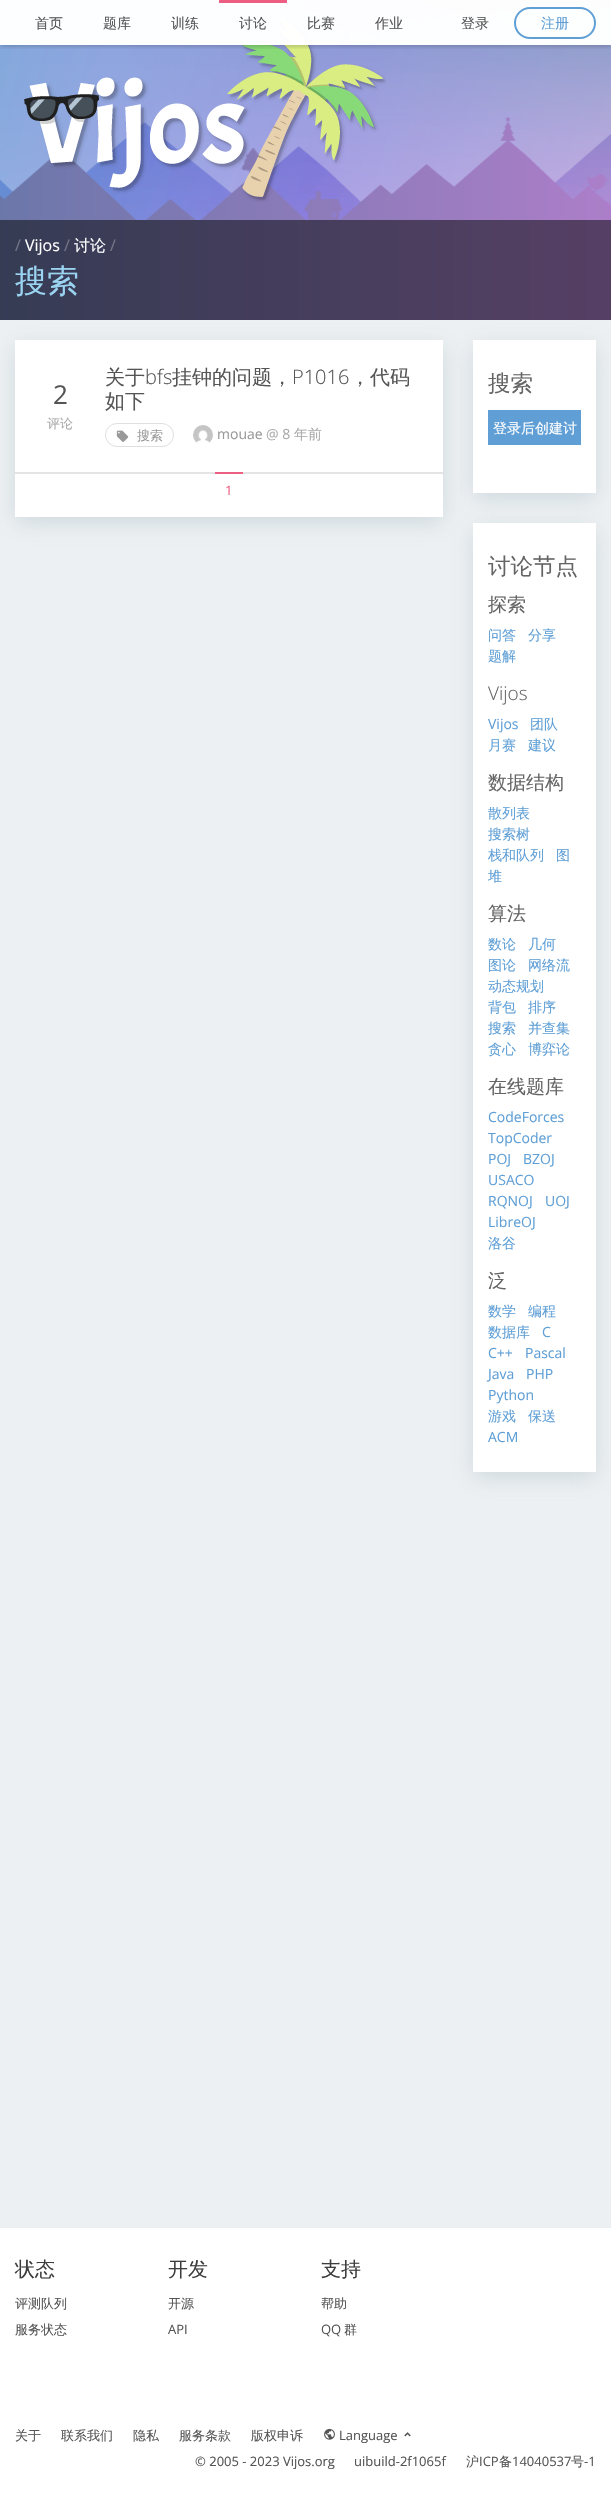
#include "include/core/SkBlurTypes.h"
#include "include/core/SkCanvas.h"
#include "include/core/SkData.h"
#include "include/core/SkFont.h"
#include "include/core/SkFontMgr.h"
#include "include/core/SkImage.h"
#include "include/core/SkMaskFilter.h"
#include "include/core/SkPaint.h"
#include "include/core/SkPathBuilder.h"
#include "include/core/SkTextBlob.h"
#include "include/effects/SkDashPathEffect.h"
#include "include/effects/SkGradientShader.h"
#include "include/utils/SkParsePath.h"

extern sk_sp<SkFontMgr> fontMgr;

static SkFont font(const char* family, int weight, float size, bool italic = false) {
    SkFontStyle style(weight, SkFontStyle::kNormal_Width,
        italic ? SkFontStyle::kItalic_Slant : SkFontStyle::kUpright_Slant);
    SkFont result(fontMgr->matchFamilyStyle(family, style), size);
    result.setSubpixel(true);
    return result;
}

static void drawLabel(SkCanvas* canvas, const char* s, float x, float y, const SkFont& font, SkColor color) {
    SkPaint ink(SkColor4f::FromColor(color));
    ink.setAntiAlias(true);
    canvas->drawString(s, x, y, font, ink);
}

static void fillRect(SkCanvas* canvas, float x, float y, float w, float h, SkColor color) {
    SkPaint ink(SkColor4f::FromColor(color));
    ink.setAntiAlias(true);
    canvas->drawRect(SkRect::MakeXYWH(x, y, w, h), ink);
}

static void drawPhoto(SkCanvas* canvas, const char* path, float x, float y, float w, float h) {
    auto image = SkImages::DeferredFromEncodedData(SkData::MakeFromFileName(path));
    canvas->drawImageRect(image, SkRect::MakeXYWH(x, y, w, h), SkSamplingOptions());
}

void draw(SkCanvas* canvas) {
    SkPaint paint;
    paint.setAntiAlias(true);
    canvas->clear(0xFFEDF0F2);
    paint.setColor(0x80AFC2C9);
    paint.setMaskFilter(SkMaskFilter::MakeBlur(kNormal_SkBlurStyle, 11));
    canvas->drawRect(SkRect::MakeXYWH(15, 346, 428, 177), paint);
    paint.setMaskFilter(nullptr);
    fillRect(canvas, 15, 340, 428, 177, 0xFFFFFFFF);
    fillRect(canvas, 15, 472, 428, 2, 0xFFE4E4E4);
    paint.setMaskFilter(SkMaskFilter::MakeBlur(kNormal_SkBlurStyle, 11));
    canvas->drawRect(SkRect::MakeXYWH(473, 346, 123, 153), paint);
    paint.setMaskFilter(nullptr);
    drawPhoto(canvas, "assets/img1.png", 0, 0, 611, 320);
    drawPhoto(canvas, "assets/img2.png", 24, 18, 362, 184);
    canvas->save();
    canvas->clipRect(SkRect::MakeXYWH(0, 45, 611, 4));
    paint.setColor(0x4D000000);
    paint.setMaskFilter(SkMaskFilter::MakeBlur(kNormal_SkBlurStyle, 3));
    canvas->drawRect(SkRect::MakeXYWH(0, 0, 611, 45), paint);
    paint.setMaskFilter(nullptr);
    canvas->restore();
    fillRect(canvas, 0, 0, 611, 45, 0xFAFFFFFF);
    SkFont font1 = font("WenQuanYi Zen Hei", 500, 14);
    drawLabel(canvas, "首页", 35, 28, font1, 0xFF555555);
    drawLabel(canvas, "题库", 103, 28, font1, 0xFF555555);
    drawLabel(canvas, "训练", 171, 28, font1, 0xFF555555);
    fillRect(canvas, 219, 0, 68, 3, 0xFFED5F82);
    drawLabel(canvas, "讨论", 239, 28, font1, 0xFF555555);
    drawLabel(canvas, "比赛", 307, 28, font1, 0xFF555555);
    drawLabel(canvas, "作业", 375, 28, font1, 0xFF555555);
    drawLabel(canvas, "登录", 461, 28, font1, 0xFF555555);
    paint.setStroke(true);
    paint.setStrokeWidth(2);
    paint.setColor(0xFF5F9FD6);
    canvas->drawRoundRect(SkRect::MakeXYWH(515, 8, 80, 30), 15, 15, paint);
    drawLabel(canvas, "注册", 541, 28, font1, 0xFF5F9FD6);
    fillRect(canvas, 0, 220, 611, 100, 0x80000000);
    SkFont font2 = font("Open Sans", 400, 16);
    drawLabel(canvas, "/", 15, 251, font2, 0xFF737688);
    drawLabel(canvas, "Vijos", 25, 251, font2, 0xFFFFFFFF);
    drawLabel(canvas, "/", 64, 251, font2, 0xFF737688);
    SkFont font3 = font("WenQuanYi Zen Hei", 500, 16);
    drawLabel(canvas, "讨论", 74, 251, font3, 0xFFFFFFFF);
    drawLabel(canvas, "/", 110, 251, font2, 0xFF737688);
    SkFont font4 = font("WenQuanYi Zen Hei", 500, 32);
    drawLabel(canvas, "搜索", 15, 292, font4, 0xFF9AD4F1);
    SkFont font5 = font("Open Sans", 400, 26);
    drawLabel(canvas, "2", 53, 404, font5, 0xFF555555);
    SkFont font6 = font("WenQuanYi Zen Hei", 500, 13);
    drawLabel(canvas, "评论", 47, 428, font6, 0xFFAAAAAA);
    SkFont font7 = font("WenQuanYi Zen Hei", 500, 20);
    drawLabel(canvas, "关于", 105, 384, font7, 0xFF555555);
    SkFont font8 = font("Open Sans", 300, 20);
    drawLabel(canvas, "bfs", 145, 384, font8, 0xFF555555);
    drawLabel(canvas, "挂钟的问题，", 172, 384, font7, 0xFF555555);
    drawLabel(canvas, "P1016", 292, 384, font8, 0xFF555555);
    drawLabel(canvas, "，代码", 350, 384, font7, 0xFF555555);
    drawLabel(canvas, "如下", 105, 408, font7, 0xFF555555);
    paint.setStrokeWidth(1);
    paint.setColor(0xFFDFDFDF);
    canvas->drawRoundRect(SkRect::MakeXYWH(105.5f, 423.5f, 68, 23), 11.5f, 11.5f, paint);
    drawPhoto(canvas, "assets/img3.png", 116, 430, 13, 12);
    drawLabel(canvas, "搜索", 137, 440, font6, 0xFF999999);
    drawPhoto(canvas, "assets/img4.png", 193, 425, 20, 18);
    SkFont font9 = font("Open Sans", 400, 14);
    drawLabel(canvas, "mouae", 217, 439, font9, 0xFF999999);
    drawLabel(canvas, "@ 8", 266, 439, font9, 0xFFAAAAAA);
    drawLabel(canvas, "年前", 294, 439, font1, 0xFFAAAAAA);
    fillRect(canvas, 215, 472, 28, 2, 0xFFED5F82);
    SkFont font10 = font("Open Sans", 400, 13);
    drawLabel(canvas, "1", 225, 495, font10, 0xFFED5F82);
    fillRect(canvas, 473, 340, 123, 153, 0xFFFFFFFF);
    SkFont font11 = font("WenQuanYi Zen Hei", 500, 22.5f);
    drawLabel(canvas, "搜索", 488, 391, font11, 0xFF646464);
    fillRect(canvas, 488, 410, 93, 35, 0xFF5F9FD6);
    drawLabel(canvas, "登录后创建讨", 493, 433, font1, 0xFFFFFFFF);
    paint.setStroke(false);
    paint.setColor(0x80AFC2C9);
    paint.setMaskFilter(SkMaskFilter::MakeBlur(kNormal_SkBlurStyle, 11));
    canvas->drawRect(SkRect::MakeXYWH(473, 529, 123, 949), paint);
    paint.setMaskFilter(nullptr);
    fillRect(canvas, 473, 523, 123, 949, 0xFFFFFFFF);
    drawLabel(canvas, "讨论节点", 488, 574, font11, 0xFF646464);
    SkFont font12 = font("WenQuanYi Zen Hei", 500, 19);
    drawLabel(canvas, "探索", 488, 611, font12, 0xFF646464);
    drawLabel(canvas, "问答", 488, 640, font1, 0xFF5F9FD6);
    drawLabel(canvas, "分享", 528, 640, font1, 0xFF5F9FD6);
    drawLabel(canvas, "题解", 488, 661, font1, 0xFF5F9FD6);
    SkFont font13 = font("Open Sans", 300, 19);
    drawLabel(canvas, "Vijos", 488, 700, font13, 0xFF646464);
    drawLabel(canvas, "Vijos", 488, 729, font9, 0xFF5F9FD6);
    drawLabel(canvas, "团队", 530, 729, font1, 0xFF5F9FD6);
    drawLabel(canvas, "月赛", 488, 750, font1, 0xFF5F9FD6);
    drawLabel(canvas, "建议", 528, 750, font1, 0xFF5F9FD6);
    drawLabel(canvas, "数据结构", 488, 789, font12, 0xFF646464);
    drawLabel(canvas, "散列表", 488, 818, font1, 0xFF5F9FD6);
    drawLabel(canvas, "搜索树", 488, 839, font1, 0xFF5F9FD6);
    drawLabel(canvas, "栈和队列", 488, 860, font1, 0xFF5F9FD6);
    drawLabel(canvas, "图", 556, 860, font1, 0xFF5F9FD6);
    drawLabel(canvas, "堆", 488, 881, font1, 0xFF5F9FD6);
    drawLabel(canvas, "算法", 488, 920, font12, 0xFF646464);
    drawLabel(canvas, "数论", 488, 949, font1, 0xFF5F9FD6);
    drawLabel(canvas, "几何", 528, 949, font1, 0xFF5F9FD6);
    drawLabel(canvas, "图论", 488, 970, font1, 0xFF5F9FD6);
    drawLabel(canvas, "网络流", 528, 970, font1, 0xFF5F9FD6);
    drawLabel(canvas, "动态规划", 488, 991, font1, 0xFF5F9FD6);
    drawLabel(canvas, "背包", 488, 1012, font1, 0xFF5F9FD6);
    drawLabel(canvas, "排序", 528, 1012, font1, 0xFF5F9FD6);
    drawLabel(canvas, "搜索", 488, 1033, font1, 0xFF5F9FD6);
    drawLabel(canvas, "并查集", 528, 1033, font1, 0xFF5F9FD6);
    drawLabel(canvas, "贪心", 488, 1054, font1, 0xFF5F9FD6);
    drawLabel(canvas, "博弈论", 528, 1054, font1, 0xFF5F9FD6);
    drawLabel(canvas, "在线题库", 488, 1093, font12, 0xFF646464);
    drawLabel(canvas, "CodeForces", 488, 1122, font9, 0xFF5F9FD6);
    drawLabel(canvas, "TopCoder", 488, 1143, font9, 0xFF5F9FD6);
    drawLabel(canvas, "POJ", 488, 1164, font9, 0xFF5F9FD6);
    drawLabel(canvas, "BZOJ", 523, 1164, font9, 0xFF5F9FD6);
    drawLabel(canvas, "USACO", 488, 1185, font9, 0xFF5F9FD6);
    drawLabel(canvas, "RQNOJ", 488, 1206, font9, 0xFF5F9FD6);
    drawLabel(canvas, "UOJ", 545, 1206, font9, 0xFF5F9FD6);
    drawLabel(canvas, "LibreOJ", 488, 1227, font9, 0xFF5F9FD6);
    drawLabel(canvas, "洛谷", 488, 1248, font1, 0xFF5F9FD6);
    drawLabel(canvas, "泛", 488, 1287, font12, 0xFF646464);
    drawLabel(canvas, "数学", 488, 1316, font1, 0xFF5F9FD6);
    drawLabel(canvas, "编程", 528, 1316, font1, 0xFF5F9FD6);
    drawLabel(canvas, "数据库", 488, 1337, font1, 0xFF5F9FD6);
    drawLabel(canvas, "C", 542, 1337, font9, 0xFF5F9FD6);
    drawLabel(canvas, "C++", 488, 1358, font9, 0xFF5F9FD6);
    drawLabel(canvas, "Pascal", 525, 1358, font9, 0xFF5F9FD6);
    drawLabel(canvas, "Java", 488, 1379, font9, 0xFF5F9FD6);
    drawLabel(canvas, "PHP", 526, 1379, font9, 0xFF5F9FD6);
    drawLabel(canvas, "Python", 488, 1400, font9, 0xFF5F9FD6);
    drawLabel(canvas, "游戏", 488, 1421, font1, 0xFF5F9FD6);
    drawLabel(canvas, "保送", 528, 1421, font1, 0xFF5F9FD6);
    drawLabel(canvas, "ACM", 488, 1442, font9, 0xFF5F9FD6);
    fillRect(canvas, 0, 2228, 611, 266, 0xFFFFFFFF);
    drawLabel(canvas, "状态", 15, 2276, font7, 0xFF3D3D3D);
    drawLabel(canvas, "评测队列", 15, 2308, font6, 0xFF555555);
    drawLabel(canvas, "服务状态", 15, 2334, font6, 0xFF555555);
    drawLabel(canvas, "开发", 168, 2276, font7, 0xFF3D3D3D);
    drawLabel(canvas, "开源", 168, 2308, font6, 0xFF555555);
    drawLabel(canvas, "API", 168, 2334, font10, 0xFF555555);
    drawLabel(canvas, "支持", 321, 2276, font7, 0xFF3D3D3D);
    drawLabel(canvas, "帮助", 321, 2308, font6, 0xFF555555);
    drawLabel(canvas, "QQ", 321, 2334, font10, 0xFF555555);
    drawLabel(canvas, "群", 344, 2334, font6, 0xFF555555);
    drawLabel(canvas, "关于", 15, 2440, font6, 0xFF555555);
    drawLabel(canvas, "联系我们", 61, 2440, font6, 0xFF555555);
    drawLabel(canvas, "隐私", 133, 2440, font6, 0xFF555555);
    drawLabel(canvas, "服务条款", 179, 2440, font6, 0xFF555555);
    drawLabel(canvas, "版权申诉", 251, 2440, font6, 0xFF555555);
    drawPhoto(canvas, "assets/img5.png", 324, 2428, 11, 12);
    drawLabel(canvas, "Language", 339, 2440, font10, 0xFF555555);
    drawPhoto(canvas, "assets/img6.png", 404, 2432, 7, 5);
    drawLabel(canvas, "© 2005 - 2023 Vijos.org", 195, 2466, font10, 0xFF555555);
    drawLabel(canvas, "uibuild-2f1065f", 354, 2466, font10, 0xFF555555);
    drawLabel(canvas, "沪", 466, 2466, font6, 0xFF555555);
    drawLabel(canvas, "ICP", 479, 2466, font10, 0xFF555555);
    drawLabel(canvas, "备", 499, 2466, font6, 0xFF555555);
    drawLabel(canvas, "14040537", 512, 2466, font10, 0xFF555555);
    drawLabel(canvas, "号", 571, 2466, font6, 0xFF555555);
    drawLabel(canvas, "-1", 584, 2466, font10, 0xFF555555);
}
